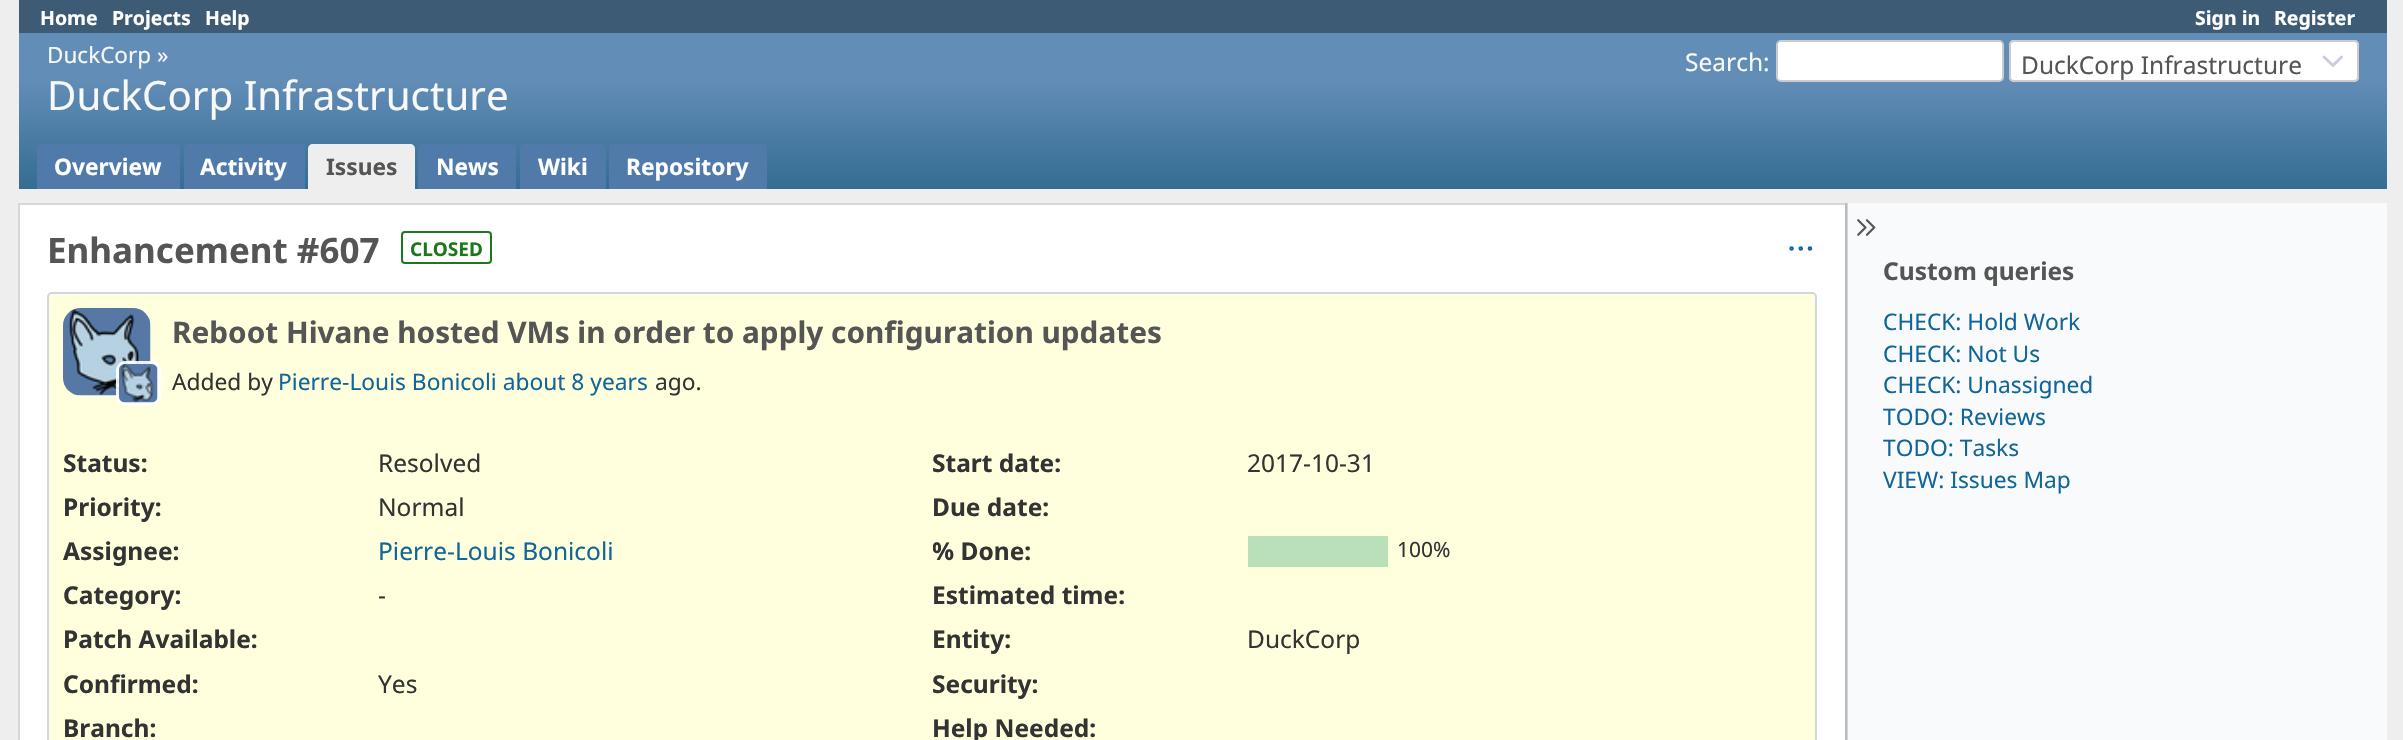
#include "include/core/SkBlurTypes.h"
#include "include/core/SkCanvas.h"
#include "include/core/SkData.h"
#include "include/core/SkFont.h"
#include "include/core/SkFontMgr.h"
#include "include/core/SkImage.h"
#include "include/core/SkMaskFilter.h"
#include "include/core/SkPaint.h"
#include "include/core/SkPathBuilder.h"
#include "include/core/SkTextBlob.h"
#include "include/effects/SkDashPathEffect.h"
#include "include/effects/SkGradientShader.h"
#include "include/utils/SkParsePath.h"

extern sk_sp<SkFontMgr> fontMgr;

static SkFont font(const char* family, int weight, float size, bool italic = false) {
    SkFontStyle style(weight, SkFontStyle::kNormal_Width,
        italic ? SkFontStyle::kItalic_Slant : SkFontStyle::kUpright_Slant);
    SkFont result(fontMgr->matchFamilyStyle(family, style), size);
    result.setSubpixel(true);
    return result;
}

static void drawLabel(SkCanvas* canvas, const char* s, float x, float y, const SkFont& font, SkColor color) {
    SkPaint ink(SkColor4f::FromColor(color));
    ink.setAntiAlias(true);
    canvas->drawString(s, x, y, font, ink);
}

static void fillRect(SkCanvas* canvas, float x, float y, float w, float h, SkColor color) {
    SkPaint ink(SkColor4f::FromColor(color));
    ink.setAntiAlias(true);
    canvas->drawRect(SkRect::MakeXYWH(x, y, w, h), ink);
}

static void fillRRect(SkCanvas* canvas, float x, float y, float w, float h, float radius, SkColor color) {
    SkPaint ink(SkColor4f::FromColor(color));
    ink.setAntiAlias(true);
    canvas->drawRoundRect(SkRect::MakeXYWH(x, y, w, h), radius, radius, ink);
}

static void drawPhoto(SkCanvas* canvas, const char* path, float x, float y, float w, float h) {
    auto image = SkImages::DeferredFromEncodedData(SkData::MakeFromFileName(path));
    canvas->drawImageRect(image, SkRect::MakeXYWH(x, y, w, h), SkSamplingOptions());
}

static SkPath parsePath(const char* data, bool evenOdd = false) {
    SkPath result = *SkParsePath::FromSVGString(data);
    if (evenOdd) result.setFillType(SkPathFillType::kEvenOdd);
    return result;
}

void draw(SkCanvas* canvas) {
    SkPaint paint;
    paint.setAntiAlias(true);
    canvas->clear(0xFFEEEEEE);
    fillRect(canvas, 19, 0, 2368, 33, 0xFF3E5B76);
    SkFont font1 = font("Noto Sans", 700, 19.5f);
    drawLabel(canvas, "Home", 40, 25, font1, 0xFFFFFFFF);
    drawLabel(canvas, "Projects", 112, 25, font1, 0xFFFFFFFF);
    drawLabel(canvas, "Help", 205, 25, font1, 0xFFFFFFFF);
    drawLabel(canvas, "Sign in", 2195, 25, font1, 0xFFFFFFFF);
    drawLabel(canvas, "Register", 2274, 25, font1, 0xFFFFFFFF);
    {
        const SkColor colors[] = {0xFF628DB6, 0xFF356D92};
        const float stops[] = {0.3f, 1};
        const SkPoint ends[] = {{1203, 33}, {1203, 189}};
        paint.setShader(SkGradientShader::MakeLinear(ends, colors, stops, 2, SkTileMode::kClamp));
        paint.setAlpha(255);
    }
    canvas->drawRect(SkRect::MakeXYWH(19, 33, 2368, 156), paint);
    SkFont font2 = font("Noto Sans", 400, 22.5f);
    drawLabel(canvas, "DuckCorp »", 47, 63, font2, 0xFFF8F8F8);
    SkFont font3 = font("Noto Sans", 400, 40.25f);
    drawLabel(canvas, "DuckCorp Infrastructure", 47, 110, font3, 0xFFF8F8F8);
    SkFont font4 = font("Noto Sans", 400, 24.5f);
    drawLabel(canvas, "Search:", 1685, 71, font4, 0xFFF8F8F8);
    paint.setShader(nullptr);
    paint.setColor(0xFFFFFFFF);
    canvas->drawRoundRect(SkRect::MakeXYWH(1777, 41, 226, 40), 4, 4, paint);
    paint.setStroke(true);
    paint.setStrokeWidth(2);
    paint.setColor(0xFFCCCCCC);
    canvas->drawRoundRect(SkRect::MakeXYWH(1777, 41, 226, 40), 4, 4, paint);
    fillRRect(canvas, 2009, 40, 350, 42, 5, 0xFFFFFFFF);
    paint.setStrokeWidth(2.9f);
    paint.setStrokeCap(SkPaint::kRound_Cap);
    paint.setStrokeJoin(SkPaint::kRound_Join);
    paint.setColor(0xFFCCCCDD);
    canvas->drawPath(parsePath("M2324 57L2333 65.5L2341.5 57"), paint);
    paint.setStrokeWidth(2);
    paint.setStrokeCap(SkPaint::kButt_Cap);
    paint.setStrokeJoin(SkPaint::kMiter_Join);
    paint.setColor(0xFFCCCCCC);
    canvas->drawRoundRect(SkRect::MakeXYWH(2010, 41, 348, 40), 4, 4, paint);
    drawLabel(canvas, "DuckCorp Infrastructure", 2021, 74, font4, 0xFF555555);
    paint.setStroke(false);
    paint.setColor(0xFF507AAA);
    canvas->drawPath(parsePath("M42 144H175C178 144 180 146 180 149V189H37V149C37 146 39 144 42 144Z"), paint);
    SkFont font5 = font("Noto Sans", 700, 22.75f);
    drawLabel(canvas, "Overview", 54, 175, font5, 0xFFFFFFFF);
    canvas->drawPath(parsePath("M189 144H300C303 144 305 146 305 149V189H184V149C184 146 186 144 189 144Z"), paint);
    drawLabel(canvas, "Activity", 200, 175, font5, 0xFFFFFFFF);
    paint.setColor(0xFFEEEEEE);
    canvas->drawPath(parsePath("M313 144H410C413 144 415 146 415 149V189H308V149C308 146 310 144 313 144Z"), paint);
    drawLabel(canvas, "Issues", 326, 175, font5, 0xFF555555);
    paint.setColor(0xFF507AAA);
    canvas->drawPath(parsePath("M423 144H511C514 144 516 146 516 149V189H418V149C418 146 420 144 423 144Z"), paint);
    drawLabel(canvas, "News", 436, 175, font5, 0xFFFFFFFF);
    canvas->drawPath(parsePath("M525 144H601C604 144 606 146 606 149V189H520V149C520 146 522 144 525 144Z"), paint);
    drawLabel(canvas, "Wiki", 538, 175, font5, 0xFFFFFFFF);
    canvas->drawPath(parsePath("M614 144H762C765 144 767 146 767 149V189H609V149C609 146 611 144 614 144Z"), paint);
    drawLabel(canvas, "Repository", 626, 175, font5, 0xFFFFFFFF);
    fillRect(canvas, 20, 205, 1825, 535, 0xFFFFFFFF);
    fillRect(canvas, 18, 203, 1828, 2, 0xFFD7D7D7);
    fillRect(canvas, 1845, 203, 2, 537, 0xFFBBBBBB);
    fillRect(canvas, 18, 203, 2, 537, 0xFFD7D7D7);
    SkFont font6 = font("Noto Sans", 700, 35);
    drawLabel(canvas, "Enhancement #607", 47, 263, font6, 0xFF555555);
    paint.setStroke(true);
    paint.setColor(0xFF1D781D);
    canvas->drawRoundRect(SkRect::MakeXYWH(402, 232, 89, 31), 3, 3, paint);
    SkFont font7 = font("Noto Sans", 700, 19);
    drawLabel(canvas, "CLOSED", 410, 256, font7, 0xFF1D781D);
    drawPhoto(canvas, "assets/img1.png", 1789, 246, 24, 5);
    paint.setStroke(false);
    paint.setColor(0xFFFFFFDD);
    canvas->drawRoundRect(SkRect::MakeXYWH(48, 293, 1768, 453), 4, 4, paint);
    paint.setStroke(true);
    paint.setColor(0xFFD0D7DE);
    canvas->drawRoundRect(SkRect::MakeXYWH(48, 293, 1768, 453), 4, 4, paint);
    drawPhoto(canvas, "assets/img2.png", 63, 308, 88, 88);
    paint.setStrokeWidth(4);
    paint.setColor(0xE6FFFFFF);
    canvas->drawRoundRect(SkRect::MakeXYWH(118, 363, 41, 41), 7, 7, paint);
    drawPhoto(canvas, "assets/img3.png", 119, 364, 39, 39);
    SkFont font8 = font("Noto Sans", 700, 29.75f);
    drawLabel(canvas, "Reboot Hivane hosted VMs in order to apply configuration updates", 172, 343, font8, 0xFF555555);
    SkFont font9 = font("Noto Sans", 400, 22.75f);
    drawLabel(canvas, "Added by", 172, 390, font9, 0xFF333333);
    drawLabel(canvas, "Pierre-Louis Bonicoli about 8 years", 278, 390, font9, 0xFF116699);
    drawLabel(canvas, "ago.", 655, 390, font9, 0xFF333333);
    SkFont font10 = font("Noto Sans", 700, 24.5f);
    drawLabel(canvas, "Status:", 63, 472, font10, 0xFF333333);
    drawLabel(canvas, "Resolved", 378, 472, font4, 0xFF333333);
    drawLabel(canvas, "Priority:", 63, 516, font10, 0xFF333333);
    drawLabel(canvas, "Normal", 378, 516, font4, 0xFF333333);
    drawLabel(canvas, "Assignee:", 63, 560, font10, 0xFF333333);
    drawLabel(canvas, "Pierre-Louis Bonicoli", 378, 560, font4, 0xFF116699);
    drawLabel(canvas, "Category:", 63, 604, font10, 0xFF333333);
    drawLabel(canvas, "-", 378, 604, font4, 0xFF333333);
    drawLabel(canvas, "Start date:", 932, 472, font10, 0xFF333333);
    drawLabel(canvas, "2017-10-31", 1247, 472, font4, 0xFF333333);
    drawLabel(canvas, "Due date:", 932, 516, font10, 0xFF333333);
    canvas->save();
    canvas->clipRect(SkRect::MakeXYWH(933, 446, 297, 177));
    drawLabel(canvas, "% Done:", 932, 560, font10, 0xFF333333);
    canvas->restore();
    fillRect(canvas, 1248, 536, 140, 31, 0xFFBAE0BA);
    SkFont font11 = font("Noto Sans", 400, 21);
    drawLabel(canvas, "100%", 1397, 557, font11, 0xFF333333);
    drawLabel(canvas, "Estimated time:", 932, 604, font10, 0xFF333333);
    drawLabel(canvas, "Patch Available:", 63, 648, font10, 0xFF333333);
    drawLabel(canvas, "Confirmed:", 63, 693, font10, 0xFF333333);
    drawLabel(canvas, "Yes", 378, 693, font4, 0xFF333333);
    drawLabel(canvas, "Branch:", 63, 737, font10, 0xFF333333);
    drawLabel(canvas, "Entity:", 932, 648, font10, 0xFF333333);
    drawLabel(canvas, "DuckCorp", 1247, 648, font4, 0xFF333333);
    drawLabel(canvas, "Security:", 932, 693, font10, 0xFF333333);
    drawLabel(canvas, "Help Needed:", 932, 737, font10, 0xFF333333);
    fillRect(canvas, 1848, 203, 539, 537, 0xFFF9FAFB);
    fillRect(canvas, 1847, 203, 1, 537, 0xFFD0D7DE);
    drawPhoto(canvas, "assets/img4.png", 1857, 219, 19, 17);
    drawLabel(canvas, "Custom queries", 1883, 280, font10, 0xFF555555);
    drawLabel(canvas, "CHECK: Hold Work", 1883, 330, font9, 0xFF116699);
    drawLabel(canvas, "CHECK: Not Us", 1883, 362, font9, 0xFF116699);
    drawLabel(canvas, "CHECK: Unassigned", 1883, 393, font9, 0xFF116699);
    drawLabel(canvas, "TODO: Reviews", 1883, 425, font9, 0xFF116699);
    drawLabel(canvas, "TODO: Tasks", 1883, 456, font9, 0xFF116699);
    drawLabel(canvas, "VIEW: Issues Map", 1883, 488, font9, 0xFF116699);
}
